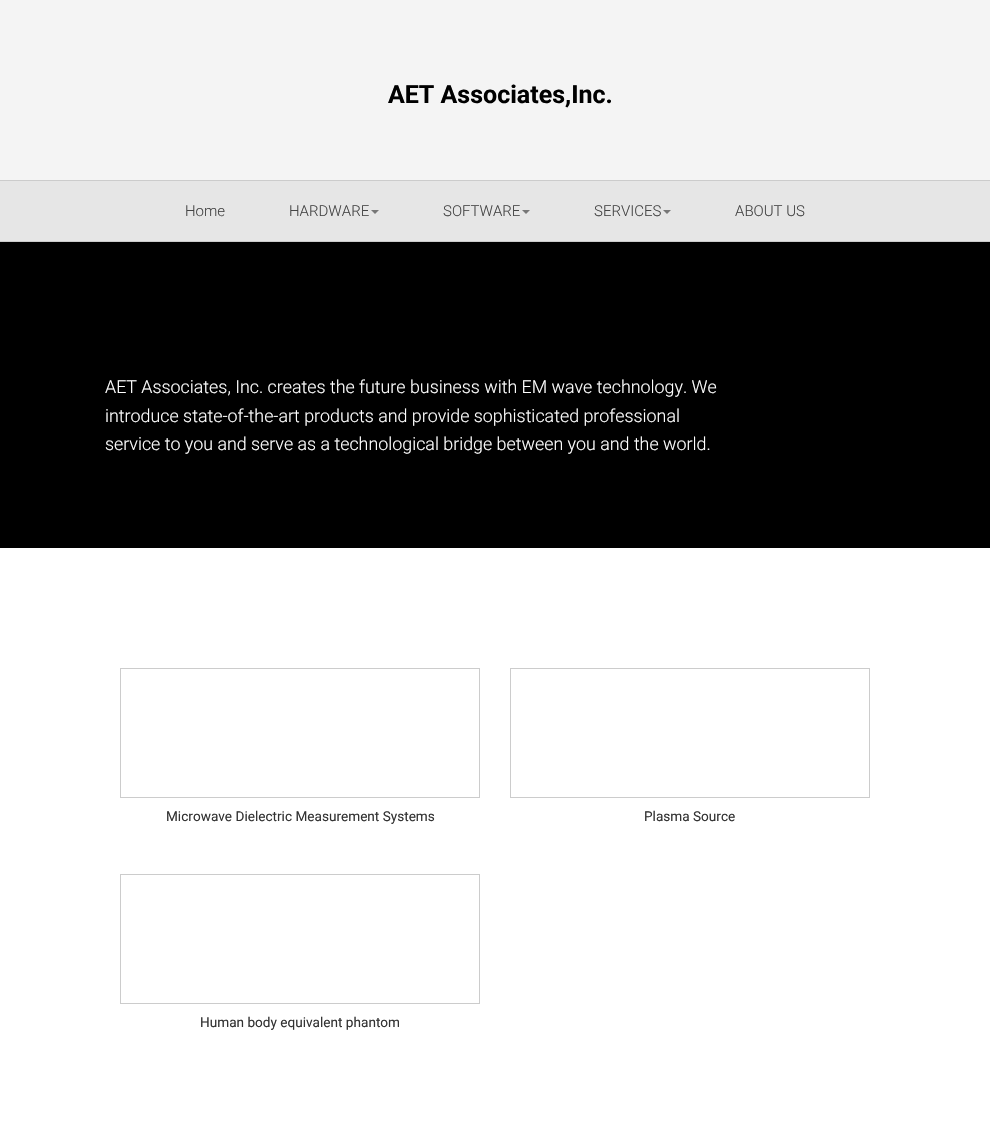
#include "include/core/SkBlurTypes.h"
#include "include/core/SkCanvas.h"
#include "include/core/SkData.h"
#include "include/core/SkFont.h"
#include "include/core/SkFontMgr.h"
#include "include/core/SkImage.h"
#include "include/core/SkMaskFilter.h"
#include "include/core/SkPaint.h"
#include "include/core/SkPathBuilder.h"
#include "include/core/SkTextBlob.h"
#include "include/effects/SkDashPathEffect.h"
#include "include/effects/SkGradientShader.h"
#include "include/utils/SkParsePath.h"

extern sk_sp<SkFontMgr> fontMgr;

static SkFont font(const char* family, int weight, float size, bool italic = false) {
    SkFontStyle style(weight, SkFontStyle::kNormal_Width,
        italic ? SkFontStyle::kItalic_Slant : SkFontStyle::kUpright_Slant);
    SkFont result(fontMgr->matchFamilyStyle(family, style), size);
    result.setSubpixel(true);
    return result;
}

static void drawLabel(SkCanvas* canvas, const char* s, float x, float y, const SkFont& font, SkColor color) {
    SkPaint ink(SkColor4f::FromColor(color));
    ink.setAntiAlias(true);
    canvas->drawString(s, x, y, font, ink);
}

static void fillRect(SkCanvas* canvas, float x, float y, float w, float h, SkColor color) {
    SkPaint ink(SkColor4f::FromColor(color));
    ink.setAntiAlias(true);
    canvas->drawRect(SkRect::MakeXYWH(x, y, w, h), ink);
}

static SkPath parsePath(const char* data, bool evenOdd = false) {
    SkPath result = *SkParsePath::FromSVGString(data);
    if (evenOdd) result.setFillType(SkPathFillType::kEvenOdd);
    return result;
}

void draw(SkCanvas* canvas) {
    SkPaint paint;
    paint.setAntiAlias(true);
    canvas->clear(0xFFFFFFFF);
    fillRect(canvas, 0, 0, 990, 180, 0xFFF4F4F4);
    SkFont font1 = font("Roboto", 700, 25);
    drawLabel(canvas, "AET Associates,Inc.", 388, 103, font1, 0xFF000000);
    fillRect(canvas, 0, 180, 990, 1, 0xFFCCCCCC);
    fillRect(canvas, 0, 241, 990, 1, 0xFFCCCCCC);
    fillRect(canvas, 0, 181, 990, 60, 0xFFE6E6E6);
    SkFont font2 = font("Roboto", 300, 15);
    drawLabel(canvas, "Home", 185, 216, font2, 0xFF454545);
    drawLabel(canvas, "HARDWARE", 289, 216, font2, 0xFF454545);
    paint.setColor(0xFF777777);
    canvas->drawPath(parsePath("M371 210H379L375 214Z"), paint);
    drawLabel(canvas, "SOFTWARE", 443, 216, font2, 0xFF454545);
    canvas->drawPath(parsePath("M522 210H530L526 214Z"), paint);
    drawLabel(canvas, "SERVICES", 594, 216, font2, 0xFF454545);
    canvas->drawPath(parsePath("M663 210H671L667 214Z"), paint);
    drawLabel(canvas, "ABOUT US", 735, 216, font2, 0xFF454545);
    fillRect(canvas, 0, 242, 990, 306, 0xFF000000);
    SkFont font3 = font("Roboto", 300, 17.85f);
    drawLabel(canvas, "AET Associates, Inc. creates the future business with EM wave technology. We", 105, 393, font3, 0xFFFFFFFF);
    drawLabel(canvas, "introduce state-of-the-art products and provide sophisticated professional", 105, 422, font3, 0xFFFFFFFF);
    drawLabel(canvas, "service to you and serve as a technological bridge between you and the world.", 105, 450, font3, 0xFFFFFFFF);
    paint.setStroke(true);
    paint.setStrokeWidth(1);
    paint.setColor(0xFFCCCCCC);
    canvas->drawRect(SkRect::MakeXYWH(120.5f, 668.5f, 359, 129), paint);
    SkFont font4 = font("Roboto", 400, 13.6f);
    drawLabel(canvas, "Microwave Dielectric Measurement Systems", 166, 821, font4, 0xFF333333);
    canvas->drawRect(SkRect::MakeXYWH(510.5f, 668.5f, 359, 129), paint);
    drawLabel(canvas, "Plasma Source", 644, 821, font4, 0xFF333333);
    canvas->drawRect(SkRect::MakeXYWH(120.5f, 874.5f, 359, 129), paint);
    drawLabel(canvas, "Human body equivalent phantom", 200, 1027, font4, 0xFF333333);
}
